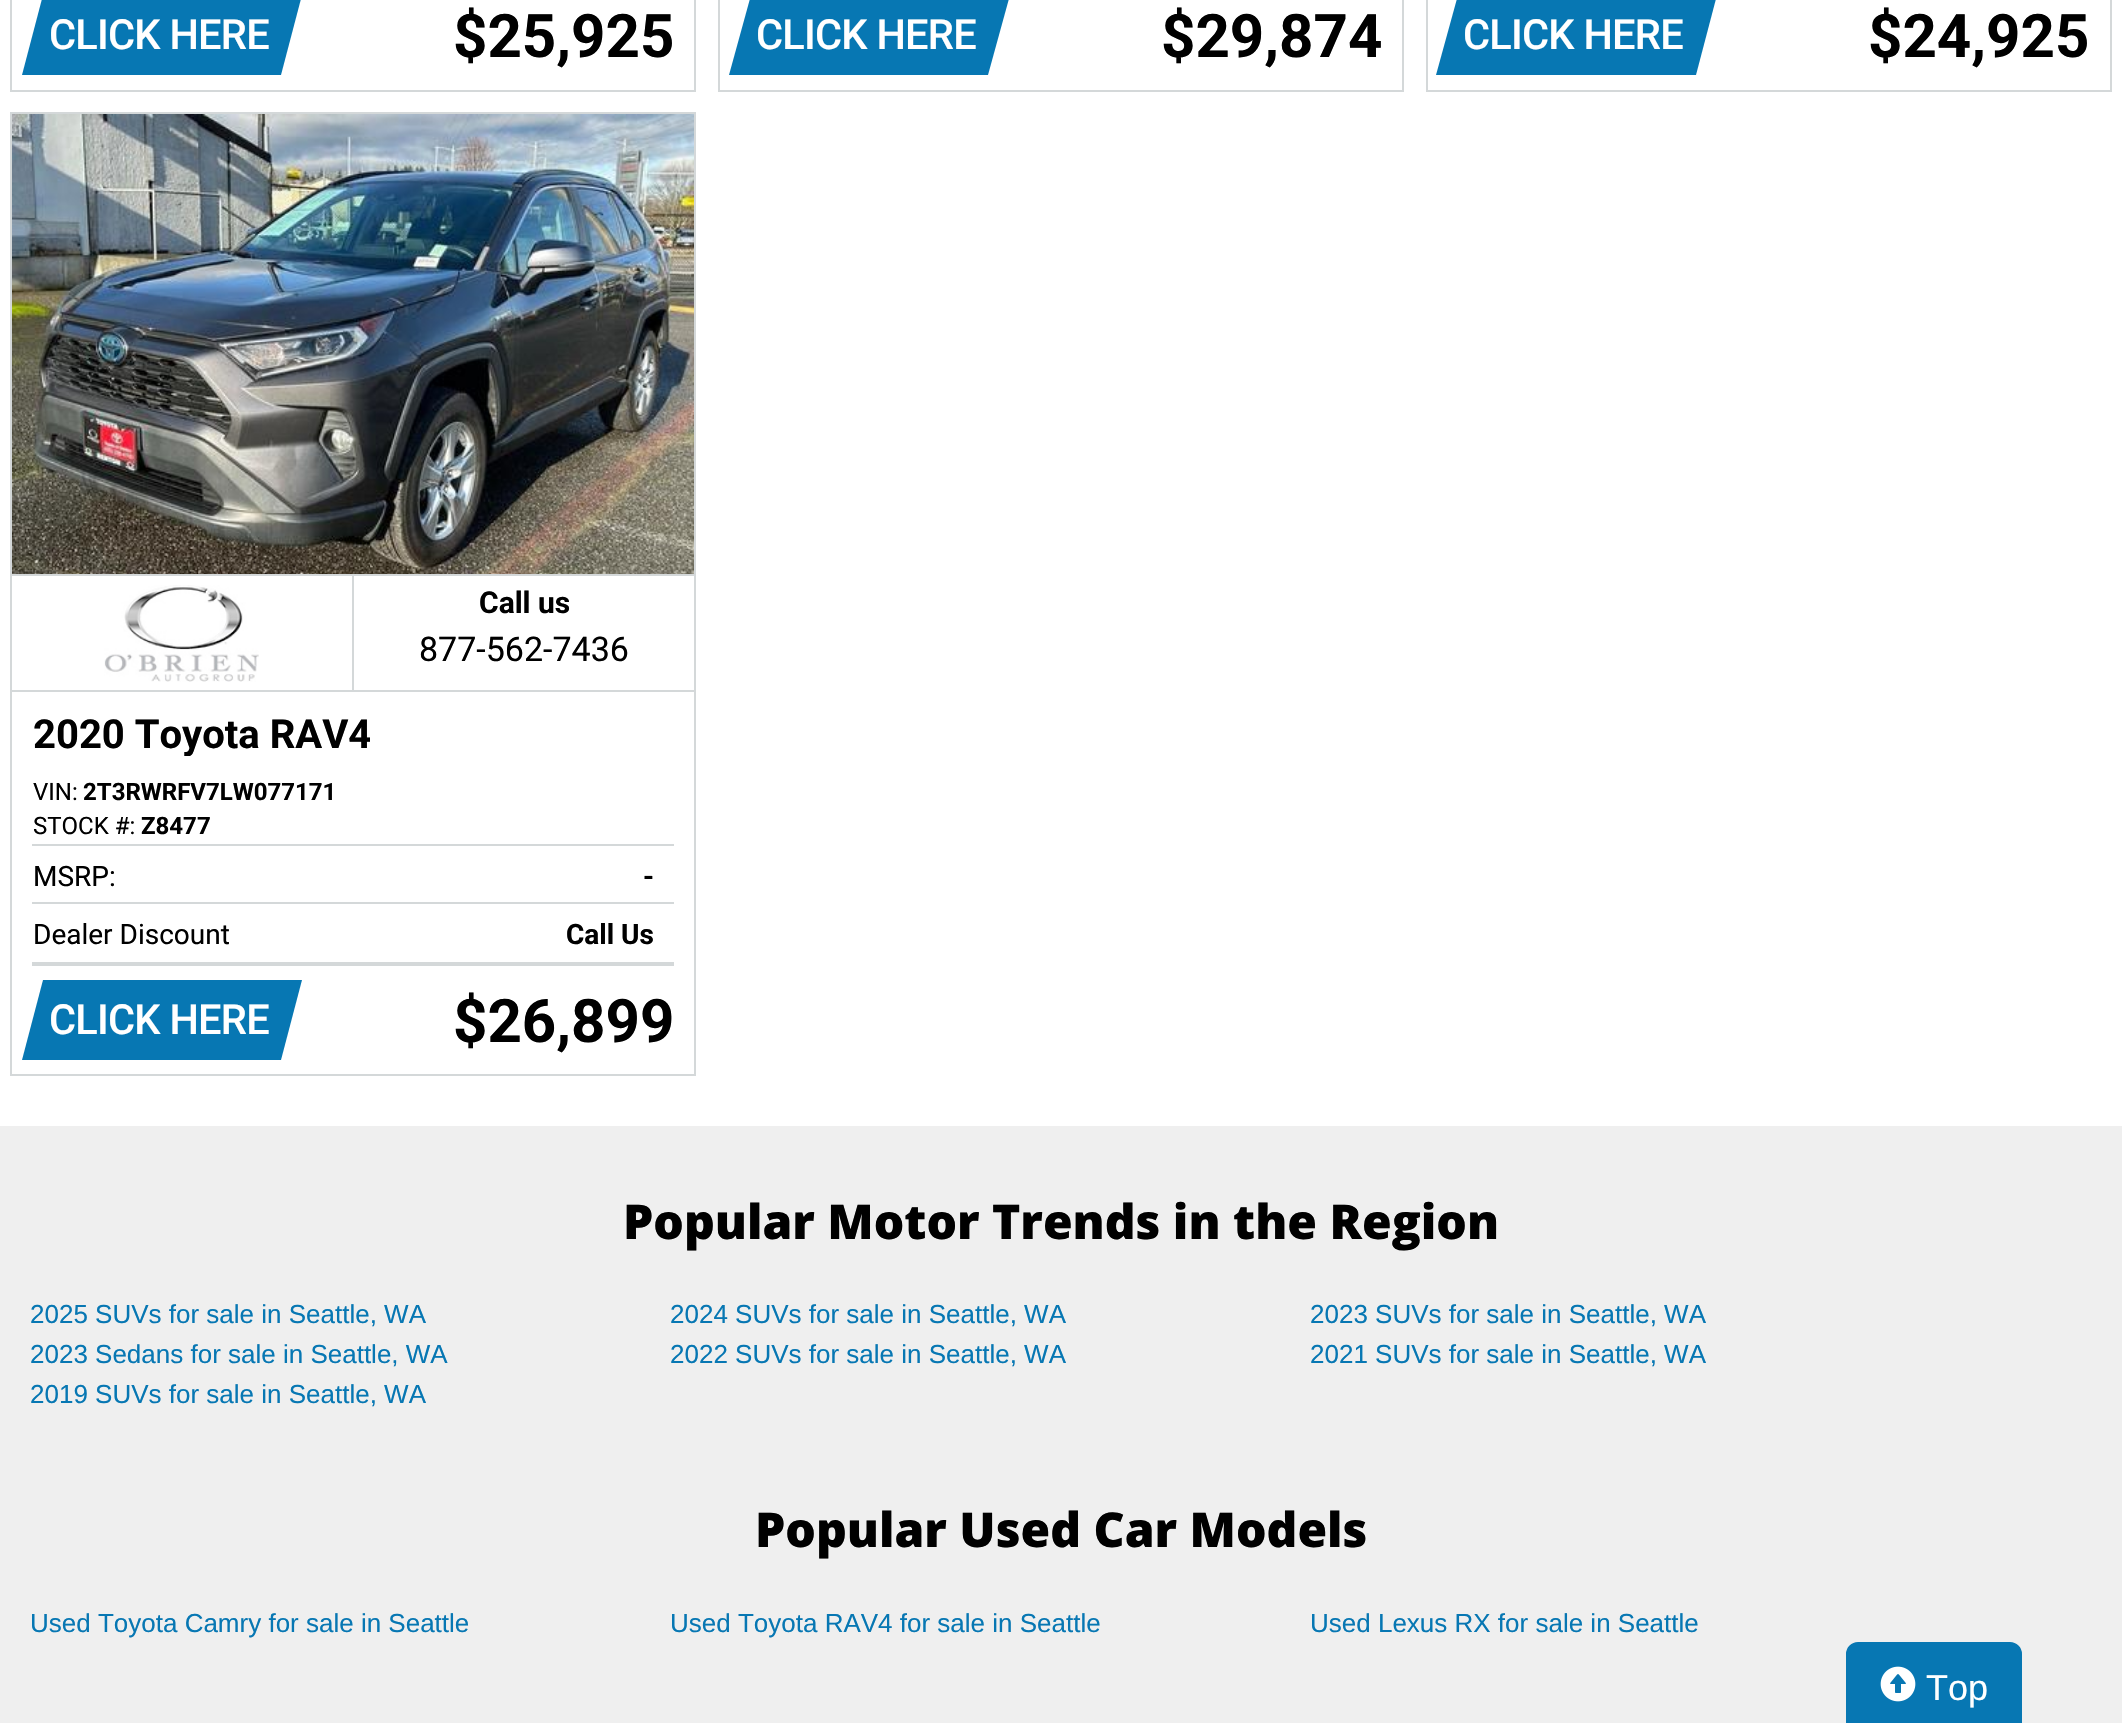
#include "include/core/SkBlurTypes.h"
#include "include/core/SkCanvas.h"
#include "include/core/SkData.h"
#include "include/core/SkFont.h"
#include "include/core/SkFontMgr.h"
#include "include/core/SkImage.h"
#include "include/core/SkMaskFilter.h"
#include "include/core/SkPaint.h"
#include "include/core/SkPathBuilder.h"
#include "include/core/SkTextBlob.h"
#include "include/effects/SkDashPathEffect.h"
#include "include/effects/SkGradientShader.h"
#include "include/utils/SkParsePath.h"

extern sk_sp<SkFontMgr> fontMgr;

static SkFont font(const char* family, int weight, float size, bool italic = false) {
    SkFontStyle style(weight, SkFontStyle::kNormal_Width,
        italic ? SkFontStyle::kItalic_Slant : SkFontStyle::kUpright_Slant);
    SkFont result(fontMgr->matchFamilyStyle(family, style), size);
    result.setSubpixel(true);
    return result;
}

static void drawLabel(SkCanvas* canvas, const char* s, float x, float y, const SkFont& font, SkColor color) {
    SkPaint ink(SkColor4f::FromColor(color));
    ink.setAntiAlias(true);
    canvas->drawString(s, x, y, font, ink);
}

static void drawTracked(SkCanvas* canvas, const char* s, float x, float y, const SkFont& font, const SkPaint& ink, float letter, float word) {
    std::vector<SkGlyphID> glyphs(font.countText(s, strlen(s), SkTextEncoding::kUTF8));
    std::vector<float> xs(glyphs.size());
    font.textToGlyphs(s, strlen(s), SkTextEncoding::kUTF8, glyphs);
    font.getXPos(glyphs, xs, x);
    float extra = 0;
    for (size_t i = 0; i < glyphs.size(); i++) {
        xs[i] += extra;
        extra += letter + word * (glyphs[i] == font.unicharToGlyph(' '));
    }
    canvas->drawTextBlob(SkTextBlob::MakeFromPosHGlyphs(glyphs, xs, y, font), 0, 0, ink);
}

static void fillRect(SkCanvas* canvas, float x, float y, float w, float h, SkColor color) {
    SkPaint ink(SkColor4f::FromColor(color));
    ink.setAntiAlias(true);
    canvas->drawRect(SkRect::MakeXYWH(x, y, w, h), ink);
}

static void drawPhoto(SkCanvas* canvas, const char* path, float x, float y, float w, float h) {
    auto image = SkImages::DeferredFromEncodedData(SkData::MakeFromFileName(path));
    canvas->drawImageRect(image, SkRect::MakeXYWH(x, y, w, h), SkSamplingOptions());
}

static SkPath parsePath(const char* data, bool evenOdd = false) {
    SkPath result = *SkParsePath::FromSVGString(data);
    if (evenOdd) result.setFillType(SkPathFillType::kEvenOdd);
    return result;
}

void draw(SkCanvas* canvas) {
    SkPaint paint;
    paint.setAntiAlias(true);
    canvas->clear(0xFFFFFFFF);
    paint.setStroke(true);
    paint.setStrokeWidth(2);
    paint.setColor(0xFFD4D8D9);
    canvas->drawRect(SkRect::MakeXYWH(11, -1, 684, 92), paint);
    paint.setStroke(false);
    paint.setColor(0xFF0777B3);
    canvas->drawPath(parsePath("M43-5H302L281 75H22Z"), paint);
    SkFont font1 = font("Roboto", 500, 41.5f);
    paint.setColor(0xFFFFFFFF);
    drawTracked(canvas, "CLICK HERE", 49, 49, font1, paint, -0.75f, 0);
    SkFont font2 = font("Roboto", 700, 60);
    drawLabel(canvas, "$25,925", 453, 57, font2, 0xFF000000);
    paint.setStroke(true);
    paint.setColor(0xFFD4D8D9);
    canvas->drawRect(SkRect::MakeXYWH(719, -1, 684, 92), paint);
    paint.setStroke(false);
    paint.setColor(0xFF0777B3);
    canvas->drawPath(parsePath("M751-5H1010L988 75H729Z"), paint);
    paint.setColor(0xFFFFFFFF);
    drawTracked(canvas, "CLICK HERE", 756, 49, font1, paint, -0.75f, 0);
    drawLabel(canvas, "$29,874", 1161, 57, font2, 0xFF000000);
    paint.setStroke(true);
    paint.setColor(0xFFD4D8D9);
    canvas->drawRect(SkRect::MakeXYWH(1427, -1, 684, 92), paint);
    paint.setStroke(false);
    paint.setColor(0xFF0777B3);
    canvas->drawPath(parsePath("M1458-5H1717L1696 75H1436Z"), paint);
    paint.setColor(0xFFFFFFFF);
    drawTracked(canvas, "CLICK HERE", 1463, 49, font1, paint, -0.75f, 0);
    drawLabel(canvas, "$24,925", 1868, 57, font2, 0xFF000000);
    paint.setStroke(true);
    paint.setColor(0xFFD4D8D9);
    canvas->drawRect(SkRect::MakeXYWH(11, 113, 684, 962), paint);
    drawPhoto(canvas, "assets/img1.png", 12, 114, 682, 460);
    fillRect(canvas, 12, 574, 682, 2, 0xFFD4D8D9);
    fillRect(canvas, 352, 574, 2, 118, 0xFFD4D8D9);
    fillRect(canvas, 12, 690, 682, 2, 0xFFD4D8D9);
    drawPhoto(canvas, "assets/img2.png", 104, 585, 155, 97);
    SkFont font3 = font("Roboto", 700, 30);
    drawLabel(canvas, "Call us", 479, 613, font3, 0xFF000000);
    SkFont font4 = font("Roboto", 400, 34);
    drawLabel(canvas, "877-562-7436", 419, 661, font4, 0xFF000000);
    canvas->save();
    canvas->clipRect(SkRect::MakeXYWH(32, 712, 338, 44));
    SkFont font5 = font("Roboto", 700, 40);
    drawLabel(canvas, "2020 Toyota RAV4", 33, 748, font5, 0xFF000000);
    canvas->restore();
    SkFont font6 = font("Roboto", 400, 24);
    drawLabel(canvas, "VIN:", 33, 800, font6, 0xFF000000);
    SkFont font7 = font("Roboto", 700, 24);
    drawLabel(canvas, "2T3RWRFV7LW077171", 83, 800, font7, 0xFF000000);
    drawLabel(canvas, "STOCK #:", 33, 834, font6, 0xFF000000);
    drawLabel(canvas, "Z8477", 141, 834, font7, 0xFF000000);
    fillRect(canvas, 32, 844, 642, 2, 0xFFD4D8D9);
    fillRect(canvas, 32, 902, 642, 2, 0xFFD4D8D9);
    SkFont font8 = font("Roboto", 400, 28);
    drawLabel(canvas, "MSRP:", 33, 886, font8, 0xFF000000);
    SkFont font9 = font("Roboto", 700, 28);
    drawLabel(canvas, "-", 643, 886, font9, 0xFF000000);
    fillRect(canvas, 32, 962, 642, 4, 0xFFD4D8D9);
    drawLabel(canvas, "Dealer Discount", 33, 944, font8, 0xFF000000);
    drawLabel(canvas, "Call Us", 566, 944, font9, 0xFF000000);
    paint.setStroke(false);
    paint.setColor(0xFF0777B3);
    canvas->drawPath(parsePath("M43 980H302L281 1060H22Z"), paint);
    paint.setColor(0xFFFFFFFF);
    drawTracked(canvas, "CLICK HERE", 49, 1034, font1, paint, -0.75f, 0);
    drawLabel(canvas, "$26,899", 453, 1042, font2, 0xFF000000);
    fillRect(canvas, 0, 1126, 2122, 597, 0xFFEFEFEF);
    paint.setColor(0xFF0777B3);
    canvas->drawRoundRect(SkRect::MakeXYWH(1847, 1643, 174, 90), 11, 11, paint);
    paint.setStroke(true);
    canvas->drawRoundRect(SkRect::MakeXYWH(1847, 1643, 174, 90), 11, 11, paint);
    drawPhoto(canvas, "assets/img3.png", 1880, 1666, 36, 36);
    SkFont font10 = font("Liberation Sans", 400, 36);
    drawLabel(canvas, "Top", 1926, 1700, font10, 0xFFFFFFFF);
    SkFont font11 = font("Open Sans", 800, 48);
    drawLabel(canvas, "Popular Motor Trends in the Region", 623, 1239, font11, 0xFF000000);
    SkFont font12 = font("Liberation Sans", 400, 26);
    drawLabel(canvas, "2025 SUVs for sale in Seattle, WA", 30, 1323, font12, 0xFF0777B3);
    drawLabel(canvas, "2024 SUVs for sale in Seattle, WA", 670, 1323, font12, 0xFF0777B3);
    drawLabel(canvas, "2023 SUVs for sale in Seattle, WA", 1310, 1323, font12, 0xFF0777B3);
    drawLabel(canvas, "2023 Sedans for sale in Seattle, WA", 30, 1363, font12, 0xFF0777B3);
    drawLabel(canvas, "2022 SUVs for sale in Seattle, WA", 670, 1363, font12, 0xFF0777B3);
    drawLabel(canvas, "2021 SUVs for sale in Seattle, WA", 1310, 1363, font12, 0xFF0777B3);
    drawLabel(canvas, "2019 SUVs for sale in Seattle, WA", 30, 1403, font12, 0xFF0777B3);
    drawLabel(canvas, "Popular Used Car Models", 755, 1547, font11, 0xFF000000);
    drawLabel(canvas, "Used Toyota Camry for sale in Seattle", 30, 1632, font12, 0xFF0777B3);
    drawLabel(canvas, "Used Toyota RAV4 for sale in Seattle", 670, 1632, font12, 0xFF0777B3);
    drawLabel(canvas, "Used Lexus RX for sale in Seattle", 1310, 1632, font12, 0xFF0777B3);
}
